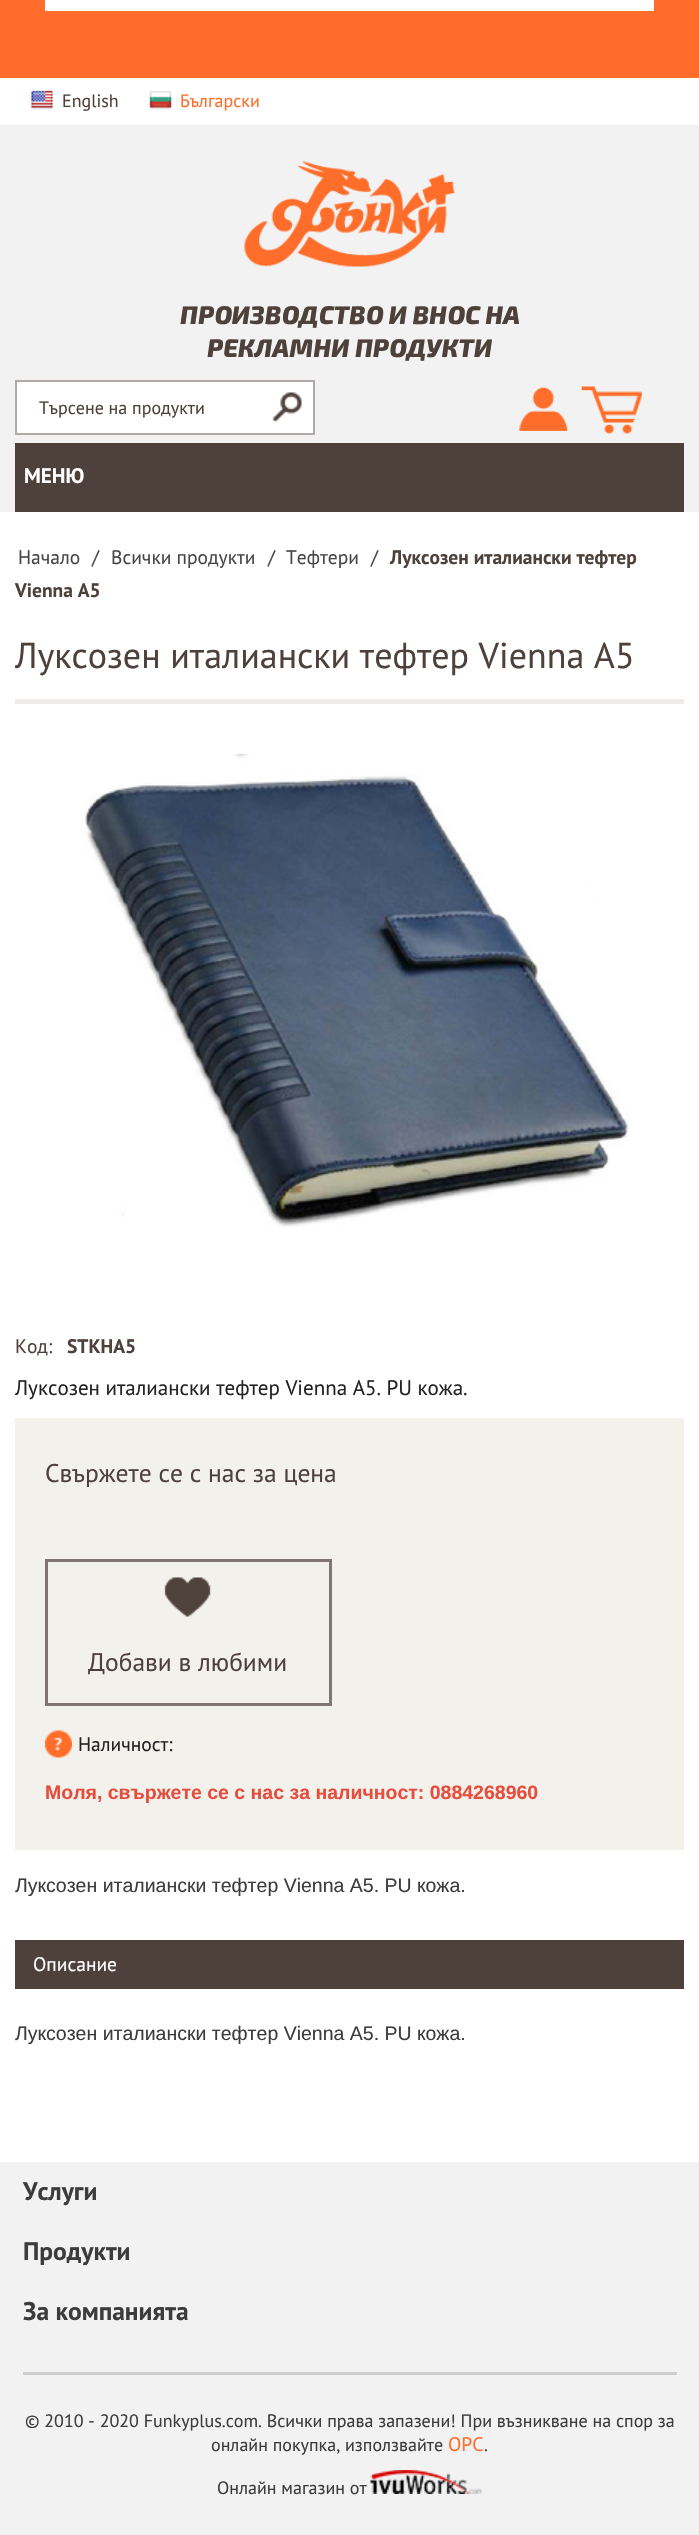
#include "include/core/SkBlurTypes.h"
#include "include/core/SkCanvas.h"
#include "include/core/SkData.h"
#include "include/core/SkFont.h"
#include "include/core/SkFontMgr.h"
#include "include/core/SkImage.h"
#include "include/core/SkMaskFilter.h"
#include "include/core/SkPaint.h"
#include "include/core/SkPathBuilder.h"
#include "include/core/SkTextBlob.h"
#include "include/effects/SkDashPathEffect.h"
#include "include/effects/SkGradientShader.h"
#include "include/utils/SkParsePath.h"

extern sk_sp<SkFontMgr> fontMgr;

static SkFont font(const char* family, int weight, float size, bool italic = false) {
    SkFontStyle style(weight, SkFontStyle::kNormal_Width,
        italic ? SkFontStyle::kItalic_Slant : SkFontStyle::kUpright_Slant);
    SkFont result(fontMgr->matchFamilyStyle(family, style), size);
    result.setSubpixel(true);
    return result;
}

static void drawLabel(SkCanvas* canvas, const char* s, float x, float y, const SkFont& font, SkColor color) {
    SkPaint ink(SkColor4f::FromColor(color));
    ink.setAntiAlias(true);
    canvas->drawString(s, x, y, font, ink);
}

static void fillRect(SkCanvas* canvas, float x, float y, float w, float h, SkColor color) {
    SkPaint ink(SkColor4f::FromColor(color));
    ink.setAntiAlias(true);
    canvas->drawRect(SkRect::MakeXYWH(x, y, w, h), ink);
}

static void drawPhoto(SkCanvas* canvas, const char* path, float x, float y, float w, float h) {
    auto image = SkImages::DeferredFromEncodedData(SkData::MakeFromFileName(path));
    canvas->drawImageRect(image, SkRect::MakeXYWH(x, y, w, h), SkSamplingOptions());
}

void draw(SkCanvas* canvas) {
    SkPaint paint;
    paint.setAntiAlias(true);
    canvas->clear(0xFFF2F2F2);
    fillRect(canvas, 0, 0, 699, 78, 0xFFFF6C2B);
    fillRect(canvas, 45, 0, 609, 11, 0xFFFFFFFF);
    fillRect(canvas, 0, 78, 699, 47, 0xFFFFFFFF);
    drawPhoto(canvas, "assets/img1.png", 30, 90, 24, 20);
    SkFont font1 = font("PT Sans", 400, 18);
    drawLabel(canvas, "English", 62, 107, font1, 0xFF4E413C);
    drawPhoto(canvas, "assets/img2.png", 149, 90, 23, 20);
    drawLabel(canvas, "Български", 180, 107, font1, 0xFFFF6D2A);
    drawPhoto(canvas, "assets/img3.png", 244, 161, 211, 106);
    SkFont font2 = font("Exo 2", 800, 25.5f, true);
    drawLabel(canvas, "ПРОИЗВОДСТВО И ВНОС НА", 180, 324, font2, 0xFF4E413C);
    drawLabel(canvas, "РЕКЛАМНИ ПРОДУКТИ", 207, 357, font2, 0xFF4E413C);
    paint.setColor(0xFFFFFFFF);
    canvas->drawRect(SkRect::MakeXYWH(16, 381, 298, 53), paint);
    paint.setStroke(true);
    paint.setStrokeWidth(2);
    paint.setColor(0xFFB0ABA9);
    canvas->drawRect(SkRect::MakeXYWH(16, 381, 298, 53), paint);
    drawLabel(canvas, "Търсене на продукти", 39, 414, font1, 0xFF4E413C);
    drawPhoto(canvas, "assets/img4.png", 272, 392, 30, 30);
    drawPhoto(canvas, "assets/img5.png", 519, 387, 49, 44);
    drawPhoto(canvas, "assets/img6.png", 581, 386, 61, 48);
    fillRect(canvas, 15, 443, 669, 69, 0xFF4E413C);
    SkFont font3 = font("PT Sans", 700, 21);
    drawLabel(canvas, "МЕНЮ", 24, 483, font3, 0xFFFFFFFF);
    fillRect(canvas, 0, 512, 699, 1650, 0xFFFFFFFF);
    SkFont font4 = font("PT Sans", 400, 19.5f);
    drawLabel(canvas, "Начало", 18, 564, font4, 0xFF484545);
    drawLabel(canvas, "/", 92, 564, font4, 0xFF484545);
    drawLabel(canvas, "Всички продукти", 111, 564, font4, 0xFF484545);
    drawLabel(canvas, "/", 268, 564, font4, 0xFF484545);
    drawLabel(canvas, "Тефтери", 286, 564, font4, 0xFF484545);
    drawLabel(canvas, "/", 371, 564, font4, 0xFF484545);
    SkFont font5 = font("PT Sans", 700, 19.5f);
    drawLabel(canvas, "Луксозен италиански тефтер", 390, 564, font5, 0xFF4E413C);
    drawLabel(canvas, "Vienna А5", 15, 597, font5, 0xFF4E413C);
    fillRect(canvas, 15, 699, 669, 5, 0xFFEDECEB);
    SkFont font6 = font("PT Sans", 400, 36);
    drawLabel(canvas, "Луксозен италиански тефтер Vienna А5", 15, 668, font6, 0xFF4E413C);
    drawPhoto(canvas, "assets/img7.png", 85, 753, 544, 474);
    drawLabel(canvas, "Код:", 15, 1353, font4, 0xFF4E413C);
    drawLabel(canvas, "STKHA5", 67, 1353, font5, 0xFF4E413C);
    SkFont font7 = font("PT Sans", 400, 21);
    drawLabel(canvas, "Луксозен италиански тефтер Vienna А5. PU кожа.", 15, 1395, font7, 0xFF232323);
    fillRect(canvas, 15, 1418, 669, 432, 0xFFF3F1EC);
    SkFont font8 = font("PT Sans", 400, 25.5f);
    drawLabel(canvas, "Свържете се с нас за цена", 45, 1482, font8, 0xFF4E413C);
    paint.setStrokeWidth(3);
    paint.setColor(0xFF7F7672);
    canvas->drawRect(SkRect::MakeXYWH(46.5f, 1560.5f, 284, 144), paint);
    drawPhoto(canvas, "assets/img8.png", 164, 1577, 47, 40);
    drawLabel(canvas, "Добави в любими", 88, 1671, font8, 0xFF4E413C);
    drawPhoto(canvas, "assets/img9.png", 45, 1730, 27, 28);
    drawLabel(canvas, "Наличност:", 78, 1751, font4, 0xFF232323);
    SkFont font9 = font("Liberation Sans", 700, 19.5f);
    drawLabel(canvas, "Моля, свържете се с нас за наличност: 0884268960", 45, 1799, font9, 0xFFE74C3C);
    SkFont font10 = font("Liberation Sans", 400, 19.5f);
    drawLabel(canvas, "Луксозен италиански тефтер Vienna А5. PU кожа.", 15, 1892, font10, 0xFF3C3C3C);
    fillRect(canvas, 15, 1940, 669, 49, 0xFF4E413C);
    drawLabel(canvas, "Описание", 33, 1971, font4, 0xFFFFFFFF);
    drawLabel(canvas, "Луксозен италиански тефтер Vienna А5. PU кожа.", 15, 2040, font10, 0xFF3C3C3C);
    SkFont font11 = font("PT Sans", 700, 25.5f);
    drawLabel(canvas, "Услуги", 23, 2200, font11, 0xFF3C3C3C);
    drawLabel(canvas, "Продукти", 23, 2260, font11, 0xFF3C3C3C);
    drawLabel(canvas, "За компанията", 23, 2320, font11, 0xFF3C3C3C);
    fillRect(canvas, 23, 2372, 654, 3, 0xFFCECECE);
    drawLabel(canvas, "© 2010 - 2020 Funkyplus.com. Всички права запазени! При възникване на спор за", 25, 2427, font1, 0xFF3C3C3C);
    drawLabel(canvas, "онлайн покупка, използвайте", 211, 2451, font1, 0xFF3C3C3C);
    drawLabel(canvas, "ОРС", 448, 2451, font4, 0xFFFF6D2A);
    drawLabel(canvas, ".", 484, 2451, font1, 0xFF3C3C3C);
    drawLabel(canvas, "Онлайн магазин от", 217, 2494, font1, 0xFF3C3C3C);
    drawPhoto(canvas, "assets/img10.png", 370, 2470, 112, 24);
}
